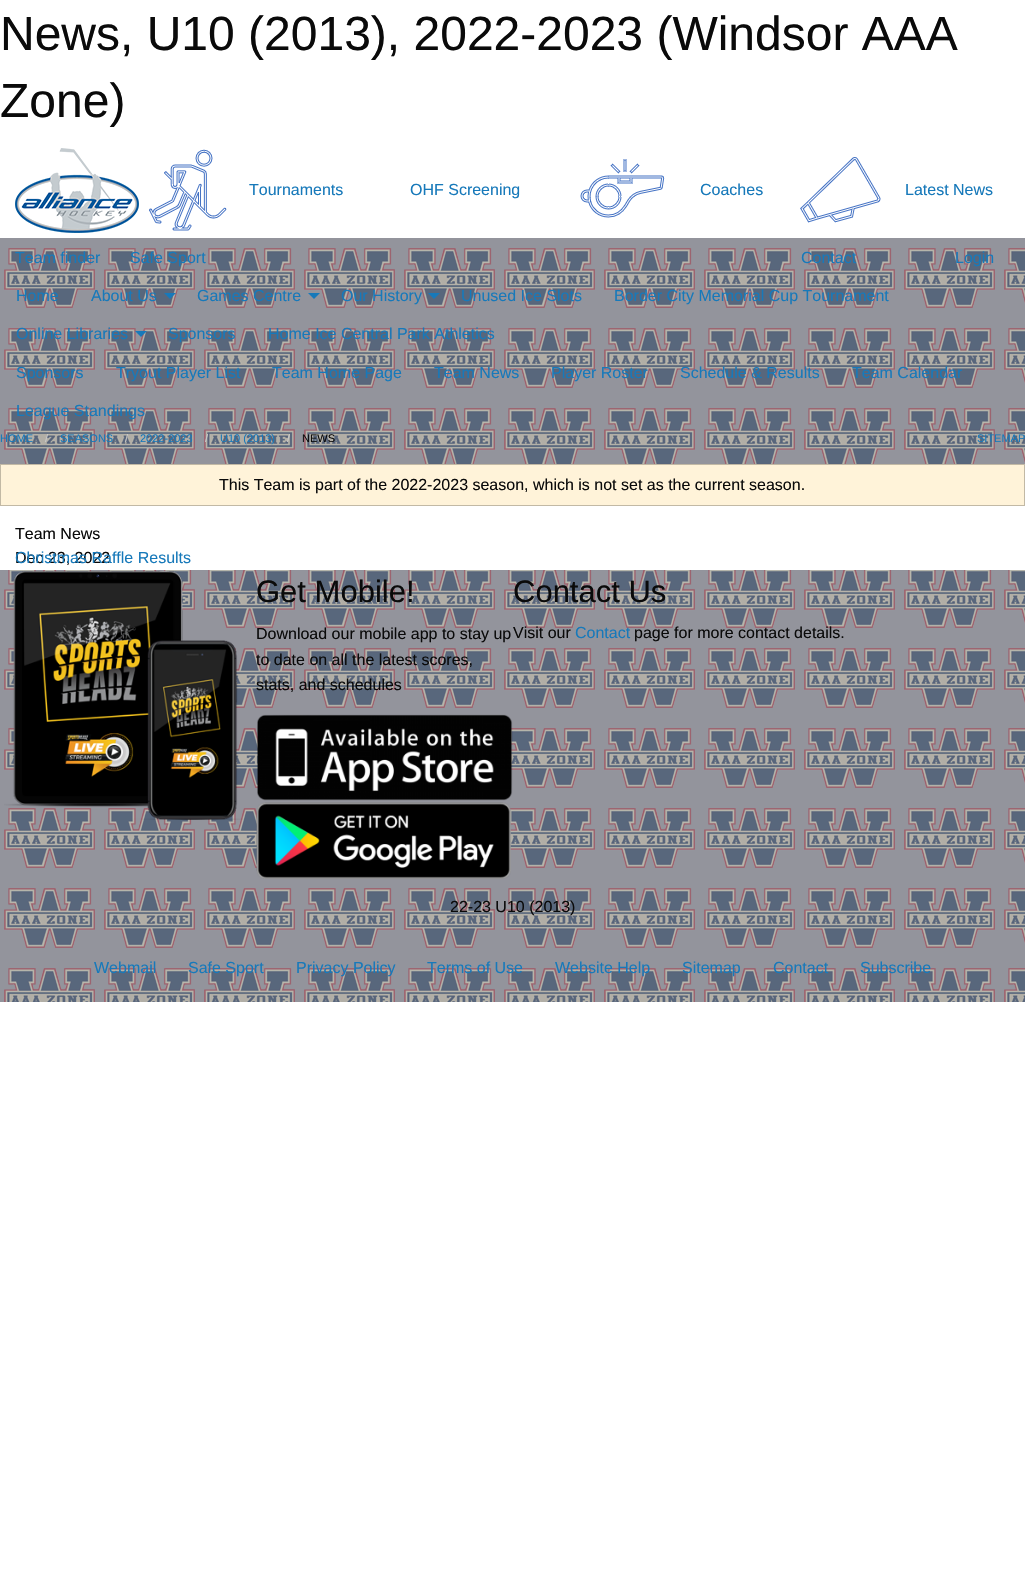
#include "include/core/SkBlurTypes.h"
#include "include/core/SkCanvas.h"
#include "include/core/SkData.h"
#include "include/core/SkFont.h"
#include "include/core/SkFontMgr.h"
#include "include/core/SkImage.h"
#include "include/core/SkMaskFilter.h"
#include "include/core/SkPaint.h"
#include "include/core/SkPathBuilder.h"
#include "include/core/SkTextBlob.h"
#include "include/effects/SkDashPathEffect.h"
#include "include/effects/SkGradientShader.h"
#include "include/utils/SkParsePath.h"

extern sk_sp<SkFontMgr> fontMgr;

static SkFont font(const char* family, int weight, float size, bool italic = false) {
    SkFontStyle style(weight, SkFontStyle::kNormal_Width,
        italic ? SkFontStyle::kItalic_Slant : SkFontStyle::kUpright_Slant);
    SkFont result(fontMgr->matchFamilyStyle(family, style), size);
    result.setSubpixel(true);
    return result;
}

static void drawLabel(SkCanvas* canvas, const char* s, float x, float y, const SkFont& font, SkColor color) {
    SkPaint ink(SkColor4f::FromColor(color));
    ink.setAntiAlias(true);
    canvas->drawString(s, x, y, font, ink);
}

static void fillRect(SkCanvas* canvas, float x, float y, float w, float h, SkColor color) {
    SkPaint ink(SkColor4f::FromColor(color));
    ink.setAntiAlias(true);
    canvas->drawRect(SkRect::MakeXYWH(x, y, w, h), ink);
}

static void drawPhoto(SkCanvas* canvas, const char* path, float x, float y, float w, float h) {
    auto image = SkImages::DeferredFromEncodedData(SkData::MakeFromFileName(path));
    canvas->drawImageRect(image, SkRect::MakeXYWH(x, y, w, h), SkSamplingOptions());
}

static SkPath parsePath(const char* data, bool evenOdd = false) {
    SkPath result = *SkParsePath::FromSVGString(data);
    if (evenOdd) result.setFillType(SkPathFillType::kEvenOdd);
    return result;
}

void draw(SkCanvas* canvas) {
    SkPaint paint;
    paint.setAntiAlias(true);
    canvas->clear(0xFFFFFFFF);
    SkFont font1 = font("Liberation Sans", 400, 48);
    drawLabel(canvas, "News, U10 (2013), 2022-2023 (Windsor AAA", 0, 50, font1, 0xFF0A0A0A);
    drawLabel(canvas, "Zone)", 0, 117, font1, 0xFF0A0A0A);
    drawPhoto(canvas, "assets/img1.png", 15, 148, 124, 85);
    drawPhoto(canvas, "assets/img2.png", 149, 149, 78, 82);
    SkFont font2 = font("Liberation Sans", 400, 16);
    drawLabel(canvas, "Tournaments", 249, 195, font2, 0xFF1779BA);
    drawLabel(canvas, "OHF Screening", 410, 195, font2, 0xFF1779BA);
    drawPhoto(canvas, "assets/img3.png", 580, 159, 85, 59);
    drawLabel(canvas, "Coaches", 700, 195, font2, 0xFF1779BA);
    drawPhoto(canvas, "assets/img4.png", 800, 157, 81, 66);
    drawLabel(canvas, "Latest News", 905, 195, font2, 0xFF1779BA);
    fillRect(canvas, 0, 238, 1025, 764, 0xFF93949C);
    drawPhoto(canvas, "assets/img5.png", 4, 248, 1021, 754);
    drawLabel(canvas, "Team finder", 15, 263, font2, 0xFF1779BA);
    drawLabel(canvas, "Safe Sport", 130, 263, font2, 0xFF1779BA);
    drawLabel(canvas, "Contact", 801, 263, font2, 0xFF1779BA);
    drawLabel(canvas, "Login", 955, 263, font2, 0xFF1779BA);
    drawLabel(canvas, "Home", 16, 301, font2, 0xFF1779BA);
    drawLabel(canvas, "About Us", 91, 301, font2, 0xFF1779BA);
    paint.setColor(0xFF1779BA);
    canvas->drawPath(parsePath("M164 293H176L170 299Z"), paint);
    drawLabel(canvas, "Games Centre", 197, 301, font2, 0xFF1779BA);
    canvas->drawPath(parsePath("M308 293H320L314 299Z"), paint);
    drawLabel(canvas, "Our History", 341, 301, font2, 0xFF1779BA);
    canvas->drawPath(parsePath("M428 293H440L434 299Z"), paint);
    drawLabel(canvas, "Unused Ice Slots", 461, 301, font2, 0xFF1779BA);
    drawLabel(canvas, "Border City Memorial Cup Tournament", 614, 301, font2, 0xFF1779BA);
    drawLabel(canvas, "Online Libraries", 16, 339, font2, 0xFF1779BA);
    canvas->drawPath(parsePath("M135 331H147L141 337Z"), paint);
    drawLabel(canvas, "Sponsors", 168, 339, font2, 0xFF1779BA);
    drawLabel(canvas, "Home Ice Central Park Athletics", 268, 339, font2, 0xFF1779BA);
    drawLabel(canvas, "Sponsors", 16, 378, font2, 0xFF1779BA);
    drawLabel(canvas, "Tryout Player List", 116, 378, font2, 0xFF1779BA);
    drawLabel(canvas, "Team Home Page", 272, 378, font2, 0xFF1779BA);
    drawLabel(canvas, "Team News", 434, 378, font2, 0xFF1779BA);
    drawLabel(canvas, "Player Roster", 551, 378, font2, 0xFF1779BA);
    drawLabel(canvas, "Schedule & Results", 680, 378, font2, 0xFF1779BA);
    drawLabel(canvas, "Team Calendar", 852, 378, font2, 0xFF1779BA);
    drawLabel(canvas, "League Standings", 16, 416, font2, 0xFF1779BA);
    SkFont font3 = font("Liberation Sans", 400, 11);
    drawLabel(canvas, "HOME", 0, 442, font3, 0xFF1779BA);
    drawLabel(canvas, "/", 45, 442, font3, 0xFFCACACA);
    drawLabel(canvas, "SEASONS", 60, 442, font3, 0xFF1779BA);
    drawLabel(canvas, "/", 125, 442, font3, 0xFFCACACA);
    drawLabel(canvas, "2022-2023", 140, 442, font3, 0xFF1779BA);
    drawLabel(canvas, "/", 205, 442, font3, 0xFFCACACA);
    drawLabel(canvas, "U10 (2013)", 220, 442, font3, 0xFF1779BA);
    drawLabel(canvas, "/", 287, 442, font3, 0xFFCACACA);
    drawLabel(canvas, "NEWS", 302, 442, font3, 0xFF0A0A0A);
    drawLabel(canvas, "SITEMAP", 977, 442, font3, 0xFF1779BA);
    fillRect(canvas, 0, 506, 1025, 64, 0xFFFFFFFF);
    paint.setColor(0xFFFFF3D9);
    canvas->drawRect(SkRect::MakeXYWH(0.5f, 464.5f, 1024, 41), paint);
    paint.setStroke(true);
    paint.setStrokeWidth(1);
    paint.setColor(0xFFC2B9A5);
    canvas->drawRect(SkRect::MakeXYWH(0.5f, 464.5f, 1024, 41), paint);
    drawLabel(canvas, "This Team is part of the 2022-2023 season, which is not set as the current season.", 219, 490, font2, 0xFF0A0A0A);
    drawLabel(canvas, "Team News", 15, 539, font2, 0xFF0A0A0A);
    drawLabel(canvas, "Dec 23, 2022", 15, 563, font2, 0xFF0A0A0A);
    drawLabel(canvas, "Christmas Raffle Results", 15, 563, font2, 0xFF1779BA);
    drawPhoto(canvas, "assets/img6.png", 4, 570, 239, 250);
    SkFont font4 = font("Liberation Sans", 400, 31);
    drawLabel(canvas, "Get Mobile!", 256, 602, font4, 0xFF0A0A0A);
    drawLabel(canvas, "Download our mobile app to stay up", 256, 639, font2, 0xFF0A0A0A);
    drawLabel(canvas, "to date on all the latest scores,", 256, 665, font2, 0xFF0A0A0A);
    drawLabel(canvas, "stats, and schedules", 256, 690, font2, 0xFF0A0A0A);
    drawPhoto(canvas, "assets/img7.png", 257, 714, 256, 87);
    drawPhoto(canvas, "assets/img8.png", 256, 802, 255, 77);
    drawLabel(canvas, "Contact Us", 513, 602, font4, 0xFF0A0A0A);
    drawLabel(canvas, "Visit our", 513, 638, font2, 0xFF0A0A0A);
    drawLabel(canvas, "Contact", 575, 638, font2, 0xFF1779BA);
    drawLabel(canvas, "page for more contact details.", 634, 638, font2, 0xFF0A0A0A);
    drawLabel(canvas, "22-23 U10 (2013)", 450, 912, font2, 0xFF0A0A0A);
    drawLabel(canvas, "Webmail", 94, 973, font2, 0xFF1779BA);
    drawLabel(canvas, "Safe Sport", 188, 973, font2, 0xFF1779BA);
    drawLabel(canvas, "Privacy Policy", 296, 973, font2, 0xFF1779BA);
    drawLabel(canvas, "Terms of Use", 427, 973, font2, 0xFF1779BA);
    drawLabel(canvas, "Website Help", 555, 973, font2, 0xFF1779BA);
    drawLabel(canvas, "Sitemap", 682, 973, font2, 0xFF1779BA);
    drawLabel(canvas, "Contact", 773, 973, font2, 0xFF1779BA);
    drawLabel(canvas, "Subscribe", 860, 973, font2, 0xFF1779BA);
}
